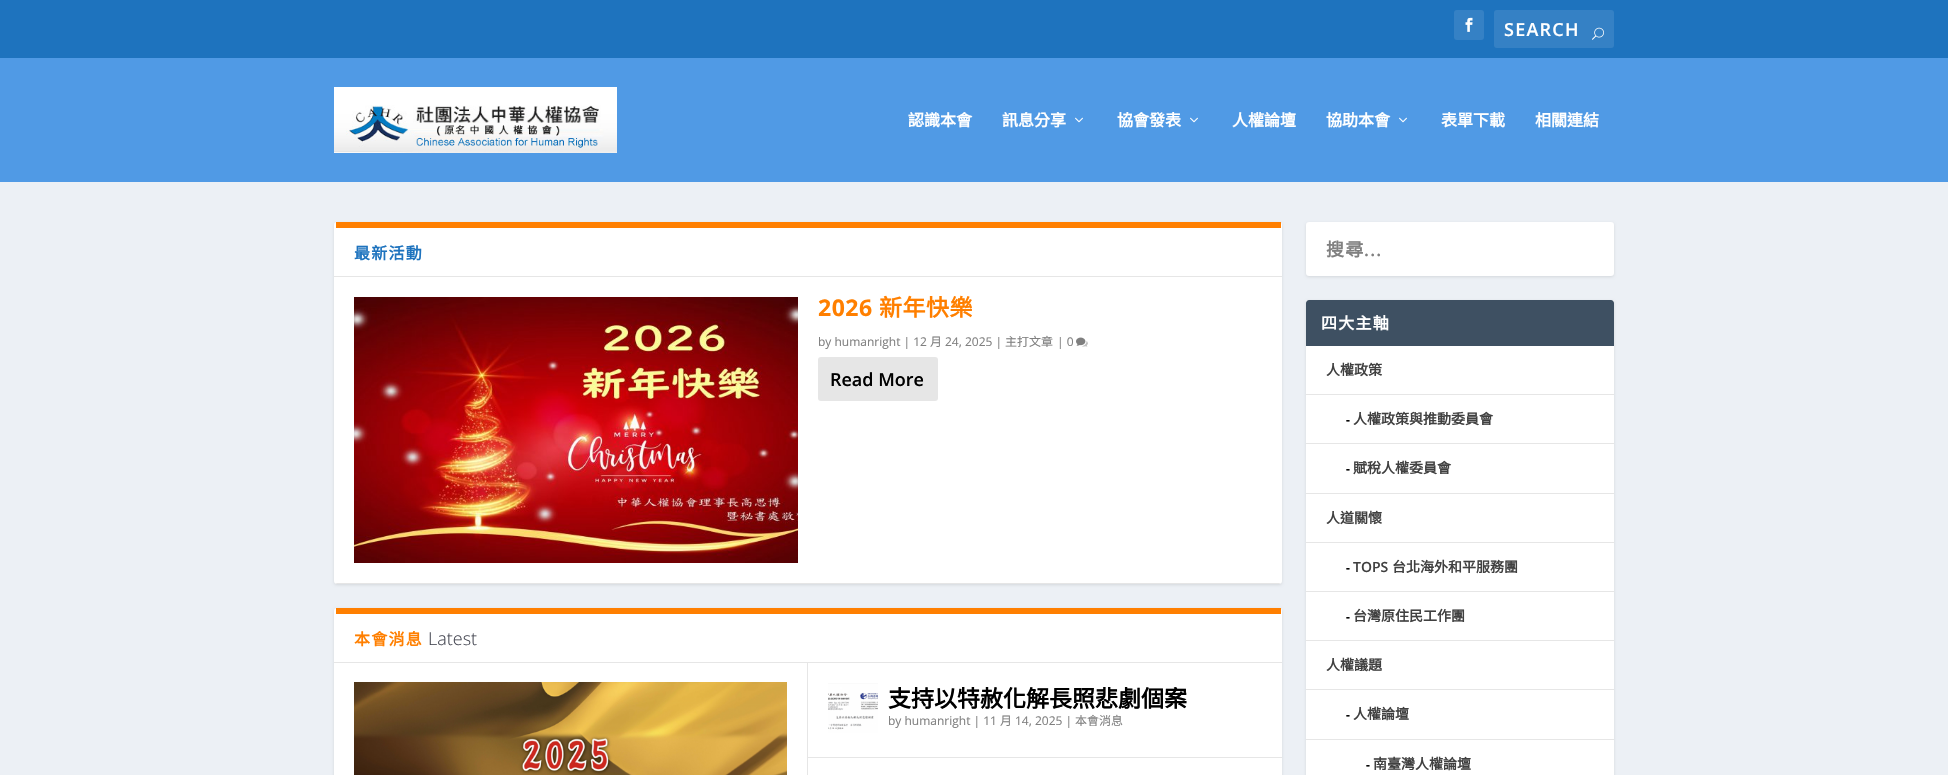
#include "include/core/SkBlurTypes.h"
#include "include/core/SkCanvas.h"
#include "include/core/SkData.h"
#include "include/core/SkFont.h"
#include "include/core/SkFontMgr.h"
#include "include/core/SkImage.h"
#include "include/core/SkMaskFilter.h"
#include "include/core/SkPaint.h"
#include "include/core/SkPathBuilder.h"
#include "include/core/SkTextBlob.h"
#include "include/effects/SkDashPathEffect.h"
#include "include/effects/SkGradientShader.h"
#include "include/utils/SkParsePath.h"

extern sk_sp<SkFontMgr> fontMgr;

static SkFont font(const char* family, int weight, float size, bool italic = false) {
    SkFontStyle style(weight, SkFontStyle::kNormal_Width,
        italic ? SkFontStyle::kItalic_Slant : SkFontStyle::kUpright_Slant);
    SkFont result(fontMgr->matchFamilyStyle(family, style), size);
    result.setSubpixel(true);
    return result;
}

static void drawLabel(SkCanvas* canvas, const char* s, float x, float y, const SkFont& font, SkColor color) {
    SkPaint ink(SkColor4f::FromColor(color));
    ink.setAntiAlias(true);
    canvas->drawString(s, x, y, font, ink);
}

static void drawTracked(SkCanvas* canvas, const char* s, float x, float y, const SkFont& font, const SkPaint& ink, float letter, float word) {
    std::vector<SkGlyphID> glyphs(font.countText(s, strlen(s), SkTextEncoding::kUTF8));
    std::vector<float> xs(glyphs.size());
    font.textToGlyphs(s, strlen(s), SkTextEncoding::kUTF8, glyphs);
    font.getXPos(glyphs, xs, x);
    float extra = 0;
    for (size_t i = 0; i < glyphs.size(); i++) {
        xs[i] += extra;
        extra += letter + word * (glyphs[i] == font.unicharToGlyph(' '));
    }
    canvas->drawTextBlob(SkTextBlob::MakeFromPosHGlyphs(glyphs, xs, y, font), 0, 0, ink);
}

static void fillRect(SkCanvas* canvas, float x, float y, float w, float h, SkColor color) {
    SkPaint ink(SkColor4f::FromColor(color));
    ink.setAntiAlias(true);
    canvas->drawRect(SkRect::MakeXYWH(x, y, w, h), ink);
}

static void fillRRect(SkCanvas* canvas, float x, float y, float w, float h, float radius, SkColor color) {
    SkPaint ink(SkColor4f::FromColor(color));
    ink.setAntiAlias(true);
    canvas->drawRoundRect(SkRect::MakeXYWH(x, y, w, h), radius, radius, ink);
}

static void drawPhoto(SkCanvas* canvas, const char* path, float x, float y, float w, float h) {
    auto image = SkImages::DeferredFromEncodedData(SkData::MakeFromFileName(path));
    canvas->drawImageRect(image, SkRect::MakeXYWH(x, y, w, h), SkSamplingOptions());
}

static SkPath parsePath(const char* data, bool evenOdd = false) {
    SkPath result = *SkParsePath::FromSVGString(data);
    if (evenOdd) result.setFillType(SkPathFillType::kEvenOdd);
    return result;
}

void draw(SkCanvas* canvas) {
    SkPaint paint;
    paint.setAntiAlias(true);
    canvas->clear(0xFFECF0F5);
    fillRect(canvas, 0, 0, 1948, 58, 0xFF1E73BE);
    fillRRect(canvas, 1454, 10, 30, 30, 3, 0xFF3581C5);
    drawPhoto(canvas, "assets/img1.png", 1465, 17, 8, 15);
    fillRRect(canvas, 1494, 10, 120, 38, 3, 0xFF3581C5);
    SkFont font1 = font("Open Sans", 600, 18);
    paint.setColor(0xFFFFFFFF);
    drawTracked(canvas, "SEARCH", 1504, 36, font1, paint, 1.25f, 0);
    drawPhoto(canvas, "assets/img2.png", 1592, 27, 12, 13);
    fillRect(canvas, 0, 58, 1948, 124, 0xFF509AE5);
    drawPhoto(canvas, "assets/img3.png", 334, 87, 283, 66);
    SkFont font2 = font("Noto Sans CJK TC", 700, 16);
    drawLabel(canvas, "認識本會", 908, 126, font2, 0xFFFFFFFF);
    drawLabel(canvas, "訊息分享", 1002, 126, font2, 0xFFFFFFFF);
    drawPhoto(canvas, "assets/img4.png", 1075, 117, 8, 6);
    drawLabel(canvas, "協會發表", 1117, 126, font2, 0xFFFFFFFF);
    drawPhoto(canvas, "assets/img4.png", 1190, 117, 8, 6);
    drawLabel(canvas, "人權論壇", 1232, 126, font2, 0xFFFFFFFF);
    drawLabel(canvas, "協助本會", 1326, 126, font2, 0xFFFFFFFF);
    drawPhoto(canvas, "assets/img4.png", 1399, 117, 8, 6);
    drawLabel(canvas, "表單下載", 1441, 126, font2, 0xFFFFFFFF);
    drawLabel(canvas, "相關連結", 1535, 126, font2, 0xFFFFFFFF);
    paint.setColor(0x1A000000);
    paint.setMaskFilter(SkMaskFilter::MakeBlur(kNormal_SkBlurStyle, 1.5f));
    canvas->drawRoundRect(SkRect::MakeXYWH(334, 223, 948, 362), 3, 3, paint);
    paint.setMaskFilter(nullptr);
    fillRRect(canvas, 334, 222, 948, 362, 3, 0xFFFFFFFF);
    fillRect(canvas, 336, 222, 945, 6, 0xFFFF7F00);
    fillRect(canvas, 334, 276, 948, 1, 0xFFE6E6E6);
    paint.setColor(0xFF1E73BE);
    drawTracked(canvas, "最新活動", 354, 259, font2, paint, 1.25f, 0);
    paint.setColor(0xFFE5E5E5);
    canvas->drawPath(parsePath("M337 584H1279L1281 583H335Z"), paint);
    drawPhoto(canvas, "assets/img5.png", 354, 297, 444, 266);
    SkFont font3 = font("Open Sans", 700, 23);
    paint.setColor(0xFFFF7F00);
    drawTracked(canvas, "2026", 818, 316, font3, paint, 0.5f, 0);
    SkFont font4 = font("Noto Sans CJK TC", 700, 23);
    drawTracked(canvas, "新年快樂", 879, 316, font4, paint, 0.5f, 0);
    SkFont font5 = font("Open Sans", 400, 12);
    drawLabel(canvas, "by humanright | 12", 818, 346, font5, 0xFF808080);
    SkFont font6 = font("Noto Sans CJK TC", 400, 12);
    drawLabel(canvas, "月", 930, 346, font6, 0xFF808080);
    drawLabel(canvas, "24, 2025 |", 945, 346, font5, 0xFF808080);
    drawLabel(canvas, "主打文章", 1005, 346, font6, 0xFF808080);
    drawLabel(canvas, "| 0", 1057, 346, font5, 0xFF808080);
    drawPhoto(canvas, "assets/img6.png", 1076, 337, 12, 10);
    fillRRect(canvas, 818, 357, 120, 44, 3, 0xFFE6E6E6);
    drawLabel(canvas, "Read More", 830, 386, font1, 0xFF000000);
    paint.setColor(0x1A000000);
    paint.setMaskFilter(SkMaskFilter::MakeBlur(kNormal_SkBlurStyle, 1.5f));
    canvas->drawRoundRect(SkRect::MakeXYWH(334, 609, 948, 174), 3, 3, paint);
    paint.setMaskFilter(nullptr);
    fillRRect(canvas, 334, 608, 948, 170, 3, 0xFFFFFFFF);
    fillRect(canvas, 336, 608, 945, 6, 0xFFFF7F00);
    fillRect(canvas, 334, 662, 948, 1, 0xFFE6E6E6);
    paint.setColor(0xFFFF7F00);
    drawTracked(canvas, "本會消息", 354, 645, font2, paint, 1.25f, 0);
    SkFont font7 = font("Open Sans", 300, 18);
    drawLabel(canvas, "Latest", 428, 645, font7, 0xFF444651);
    fillRect(canvas, 807, 663, 1, 112, 0xFFE6E6E6);
    drawPhoto(canvas, "assets/img7.png", 354, 682, 433, 93);
    fillRect(canvas, 808, 757, 474, 1, 0xFFE6E6E6);
    drawPhoto(canvas, "assets/img8.png", 828, 683, 50, 50);
    drawLabel(canvas, "支持以特赦化解長照悲劇個案", 888, 707, font4, 0xFF000000);
    drawLabel(canvas, "by humanright | 11", 888, 725, font5, 0xFF808080);
    drawLabel(canvas, "月", 1000, 725, font6, 0xFF808080);
    drawLabel(canvas, "14, 2025 |", 1015, 725, font5, 0xFF808080);
    drawLabel(canvas, "本會消息", 1075, 725, font6, 0xFF808080);
    paint.setColor(0x1A000000);
    paint.setMaskFilter(SkMaskFilter::MakeBlur(kNormal_SkBlurStyle, 1.5f));
    canvas->drawRoundRect(SkRect::MakeXYWH(1306, 223, 308, 54), 3, 3, paint);
    paint.setMaskFilter(nullptr);
    fillRRect(canvas, 1306, 222, 308, 54, 3, 0xFFFFFFFF);
    SkFont font8 = font("Noto Sans CJK TC", 700, 18);
    paint.setColor(0xFF808080);
    drawTracked(canvas, "搜尋", 1326, 256, font8, paint, 1.25f, 0);
    drawTracked(canvas, "...", 1364, 256, font1, paint, 1.25f, 0);
    paint.setColor(0x1A000000);
    paint.setMaskFilter(SkMaskFilter::MakeBlur(kNormal_SkBlurStyle, 1.5f));
    canvas->drawRoundRect(SkRect::MakeXYWH(1306, 301, 308, 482), 3, 3, paint);
    paint.setMaskFilter(nullptr);
    fillRRect(canvas, 1306, 300, 308, 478, 3, 0xFFFFFFFF);
    paint.setColor(0xFF3E5062);
    canvas->drawPath(parsePath("M1309 300H1611C1612.5 300 1614 301.5 1614 303V346H1306V303C1306 301.5 1307.5 300 1309 300Z"), paint);
    paint.setColor(0xFFFFFFFF);
    drawTracked(canvas, "四大主軸", 1321, 329, font2, paint, 1.25f, 0);
    fillRect(canvas, 1306, 493, 308, 1, 0xFFE6E6E6);
    SkFont font9 = font("Noto Sans CJK TC", 700, 14);
    drawLabel(canvas, "人權政策", 1326, 375, font9, 0xFF404040);
    fillRect(canvas, 1306, 394, 308, 1, 0xFFE6E6E6);
    fillRect(canvas, 1306, 443, 308, 1, 0xFFE6E6E6);
    SkFont font10 = font("Open Sans", 700, 12);
    drawLabel(canvas, "-", 1346, 424, font10, 0xFF000000);
    drawLabel(canvas, "人權政策與推動委員會", 1353, 424, font9, 0xFF404040);
    drawLabel(canvas, "-", 1346, 473, font10, 0xFF000000);
    drawLabel(canvas, "賦稅人權委員會", 1353, 473, font9, 0xFF404040);
    fillRect(canvas, 1306, 640, 308, 1, 0xFFE6E6E6);
    drawLabel(canvas, "人道關懷", 1326, 523, font9, 0xFF404040);
    fillRect(canvas, 1306, 542, 308, 1, 0xFFE6E6E6);
    fillRect(canvas, 1306, 591, 308, 1, 0xFFE6E6E6);
    drawLabel(canvas, "-", 1346, 572, font10, 0xFF000000);
    SkFont font11 = font("Open Sans", 600, 14);
    drawLabel(canvas, "TOPS", 1353, 572, font11, 0xFF404040);
    drawLabel(canvas, "台北海外和平服務團", 1392, 572, font9, 0xFF404040);
    drawLabel(canvas, "-", 1346, 621, font10, 0xFF000000);
    drawLabel(canvas, "台灣原住民工作團", 1353, 621, font9, 0xFF404040);
    drawLabel(canvas, "人權議題", 1326, 670, font9, 0xFF404040);
    fillRect(canvas, 1306, 689, 308, 1, 0xFFE6E6E6);
    drawLabel(canvas, "-", 1346, 719, font10, 0xFF000000);
    drawLabel(canvas, "人權論壇", 1353, 719, font9, 0xFF404040);
    fillRect(canvas, 1306, 739, 308, 1, 0xFFE6E6E6);
    drawLabel(canvas, "-", 1366, 769, font10, 0xFF000000);
    drawLabel(canvas, "南臺灣人權論壇", 1373, 769, font9, 0xFF404040);
}
